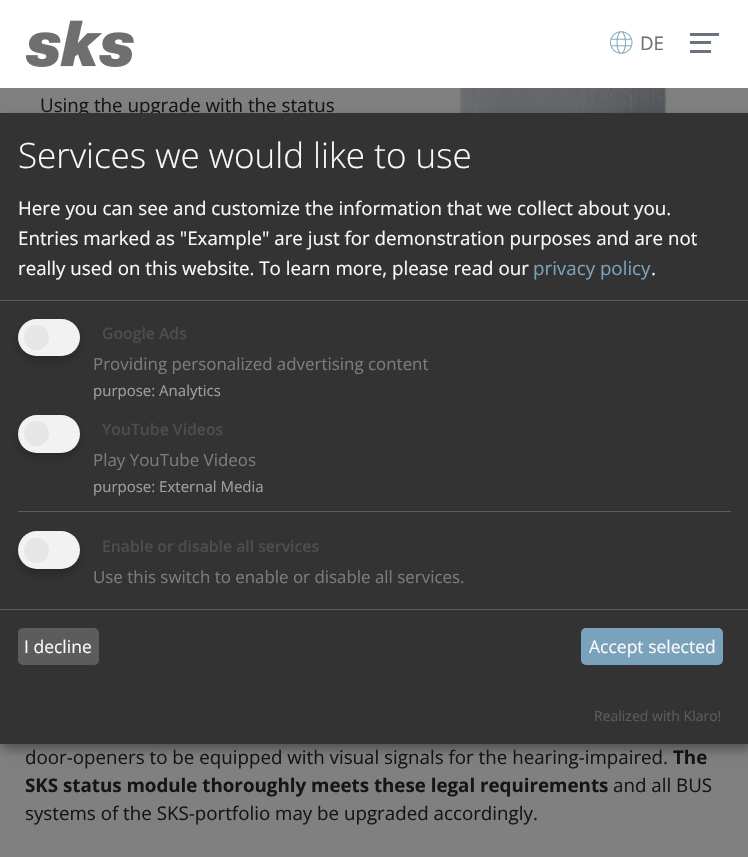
#include "include/core/SkBlurTypes.h"
#include "include/core/SkCanvas.h"
#include "include/core/SkData.h"
#include "include/core/SkFont.h"
#include "include/core/SkFontMgr.h"
#include "include/core/SkImage.h"
#include "include/core/SkMaskFilter.h"
#include "include/core/SkPaint.h"
#include "include/core/SkPathBuilder.h"
#include "include/core/SkTextBlob.h"
#include "include/effects/SkDashPathEffect.h"
#include "include/effects/SkGradientShader.h"
#include "include/utils/SkParsePath.h"

extern sk_sp<SkFontMgr> fontMgr;

static SkFont font(const char* family, int weight, float size, bool italic = false) {
    SkFontStyle style(weight, SkFontStyle::kNormal_Width,
        italic ? SkFontStyle::kItalic_Slant : SkFontStyle::kUpright_Slant);
    SkFont result(fontMgr->matchFamilyStyle(family, style), size);
    result.setSubpixel(true);
    return result;
}

static void drawLabel(SkCanvas* canvas, const char* s, float x, float y, const SkFont& font, SkColor color) {
    SkPaint ink(SkColor4f::FromColor(color));
    ink.setAntiAlias(true);
    canvas->drawString(s, x, y, font, ink);
}

static void fillRect(SkCanvas* canvas, float x, float y, float w, float h, SkColor color) {
    SkPaint ink(SkColor4f::FromColor(color));
    ink.setAntiAlias(true);
    canvas->drawRect(SkRect::MakeXYWH(x, y, w, h), ink);
}

static void fillRRect(SkCanvas* canvas, float x, float y, float w, float h, float radius, SkColor color) {
    SkPaint ink(SkColor4f::FromColor(color));
    ink.setAntiAlias(true);
    canvas->drawRoundRect(SkRect::MakeXYWH(x, y, w, h), radius, radius, ink);
}

static void drawPhoto(SkCanvas* canvas, const char* path, float x, float y, float w, float h) {
    auto image = SkImages::DeferredFromEncodedData(SkData::MakeFromFileName(path));
    canvas->drawImageRect(image, SkRect::MakeXYWH(x, y, w, h), SkSamplingOptions());
}

void draw(SkCanvas* canvas) {
    SkPaint paint;
    paint.setAntiAlias(true);
    canvas->clear(0xFF808080);
    fillRect(canvas, 0, 0, 748, 88, 0xFFFFFFFF);
    drawPhoto(canvas, "assets/img1.png", 26, 20, 108, 47);
    drawPhoto(canvas, "assets/img2.png", 610, 31, 23, 23);
    SkFont font1 = font("Open Sans", 400, 18.75f);
    drawLabel(canvas, "DE", 640, 50, font1, 0xFF6F6F6E);
    fillRect(canvas, 690, 41, 21, 3, 0xFF6A717F);
    fillRect(canvas, 690, 33, 29, 3, 0xFF6A717F);
    fillRect(canvas, 690, 50, 21, 3, 0xFF6A717F);
    drawLabel(canvas, "Using the upgrade with the status", 40, 112, font1, 0xFF151515);
    drawPhoto(canvas, "assets/img3.png", 423, 88, 278, 25);
    drawLabel(canvas, "door-openers to be equipped with visual signals for the hearing-impaired.", 25, 764, font1, 0xFF151515);
    SkFont font2 = font("Open Sans", 700, 18.75f);
    drawLabel(canvas, "The", 673, 764, font2, 0xFF151515);
    drawLabel(canvas, "SKS status module thoroughly meets these legal requirements", 25, 792, font2, 0xFF151515);
    drawLabel(canvas, "and all BUS", 613, 792, font1, 0xFF151515);
    drawLabel(canvas, "systems of the SKS-portfolio may be upgraded accordingly.", 25, 820, font1, 0xFF151515);
    paint.setColor(0x30000000);
    paint.setMaskFilter(SkMaskFilter::MakeBlur(kNormal_SkBlurStyle, 6));
    canvas->drawRect(SkRect::MakeXYWH(6, 119, 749, 631), paint);
    paint.setMaskFilter(nullptr);
    paint.setColor(0x33000000);
    paint.setMaskFilter(SkMaskFilter::MakeBlur(kNormal_SkBlurStyle, 4));
    canvas->drawRect(SkRect::MakeXYWH(0, 118, 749, 631), paint);
    paint.setMaskFilter(nullptr);
    fillRect(canvas, 0, 113, 748, 631, 0xFF333333);
    fillRect(canvas, 0, 300, 748, 1, 0xFF5C5C5C);
    SkFont font3 = font("Open Sans", 300, 35);
    drawLabel(canvas, "Services we would like to use", 18, 168, font3, 0xFFFAFAFA);
    drawLabel(canvas, "Here you can see and customize the information that we collect about you.", 18, 215, font1, 0xFFFAFAFA);
    drawLabel(canvas, "Entries marked as \"Example\" are just for demonstration purposes and are not", 18, 245, font1, 0xFFFAFAFA);
    drawLabel(canvas, "really used on this website. To learn more, please read our", 18, 275, font1, 0xFFFAFAFA);
    drawLabel(canvas, "privacy policy", 533, 275, font1, 0xFF7AA3BB);
    drawLabel(canvas, ".", 651, 275, font1, 0xFFFAFAFA);
    paint.setMaskFilter(SkMaskFilter::MakeBlur(kNormal_SkBlurStyle, 4));
    canvas->drawRoundRect(SkRect::MakeXYWH(18, 324, 62, 37), 18.5f, 18.5f, paint);
    paint.setMaskFilter(nullptr);
    fillRRect(canvas, 18, 319, 62, 37, 18.5f, 0xFFF2F2F2);
    paint.setColor(0xFFE6E6E6);
    canvas->drawCircle(36.5f, 337.5f, 12.5f, paint);
    SkFont font4 = font("Open Sans", 600, 15.75f);
    drawLabel(canvas, "Google Ads", 102, 339, font4, 0xFF4D4D4D);
    SkFont font5 = font("Open Sans", 400, 16.9f);
    drawLabel(canvas, "Providing personalized advertising content", 93, 370, font5, 0xFF7C7C7C);
    SkFont font6 = font("Open Sans", 400, 15);
    drawLabel(canvas, "purpose: Analytics", 93, 396, font6, 0xFFA0A0A0);
    paint.setColor(0x33000000);
    paint.setMaskFilter(SkMaskFilter::MakeBlur(kNormal_SkBlurStyle, 4));
    canvas->drawRoundRect(SkRect::MakeXYWH(18, 420, 62, 38), 19, 19, paint);
    paint.setMaskFilter(nullptr);
    fillRRect(canvas, 18, 415, 62, 38, 19, 0xFFF2F2F2);
    paint.setColor(0xFFE6E6E6);
    canvas->drawCircle(36.5f, 433.5f, 12.5f, paint);
    drawLabel(canvas, "YouTube Videos", 102, 435, font4, 0xFF4D4D4D);
    drawLabel(canvas, "Play YouTube Videos", 93, 466, font5, 0xFF7C7C7C);
    drawLabel(canvas, "purpose: External Media", 93, 492, font6, 0xFFA0A0A0);
    fillRect(canvas, 18, 511, 713, 1, 0xFF5C5C5C);
    paint.setColor(0x33000000);
    paint.setMaskFilter(SkMaskFilter::MakeBlur(kNormal_SkBlurStyle, 4));
    canvas->drawRoundRect(SkRect::MakeXYWH(18, 536, 62, 38), 19, 19, paint);
    paint.setMaskFilter(nullptr);
    fillRRect(canvas, 18, 531, 62, 38, 19, 0xFFF2F2F2);
    paint.setColor(0xFFE6E6E6);
    canvas->drawCircle(36.5f, 550.5f, 12.5f, paint);
    drawLabel(canvas, "Enable or disable all services", 102, 552, font4, 0xFF4D4D4D);
    drawLabel(canvas, "Use this switch to enable or disable all services.", 93, 583, font5, 0xFF7C7C7C);
    fillRect(canvas, 0, 609, 748, 1, 0xFF5C5C5C);
    fillRRect(canvas, 18, 628, 81, 37, 5, 0xFF5C5C5C);
    SkFont font7 = font("Open Sans", 400, 17.5f);
    drawLabel(canvas, "I decline", 24, 653, font7, 0xFFFAFAFA);
    fillRRect(canvas, 581, 628, 142, 37, 5, 0xFF7AA3BB);
    drawLabel(canvas, "Accept selected", 589, 653, font7, 0xFFFAFAFA);
    SkFont font8 = font("Open Sans", 400, 14);
    drawLabel(canvas, "Realized with Klaro!", 594, 721, font8, 0xFF5C5C5C);
}
